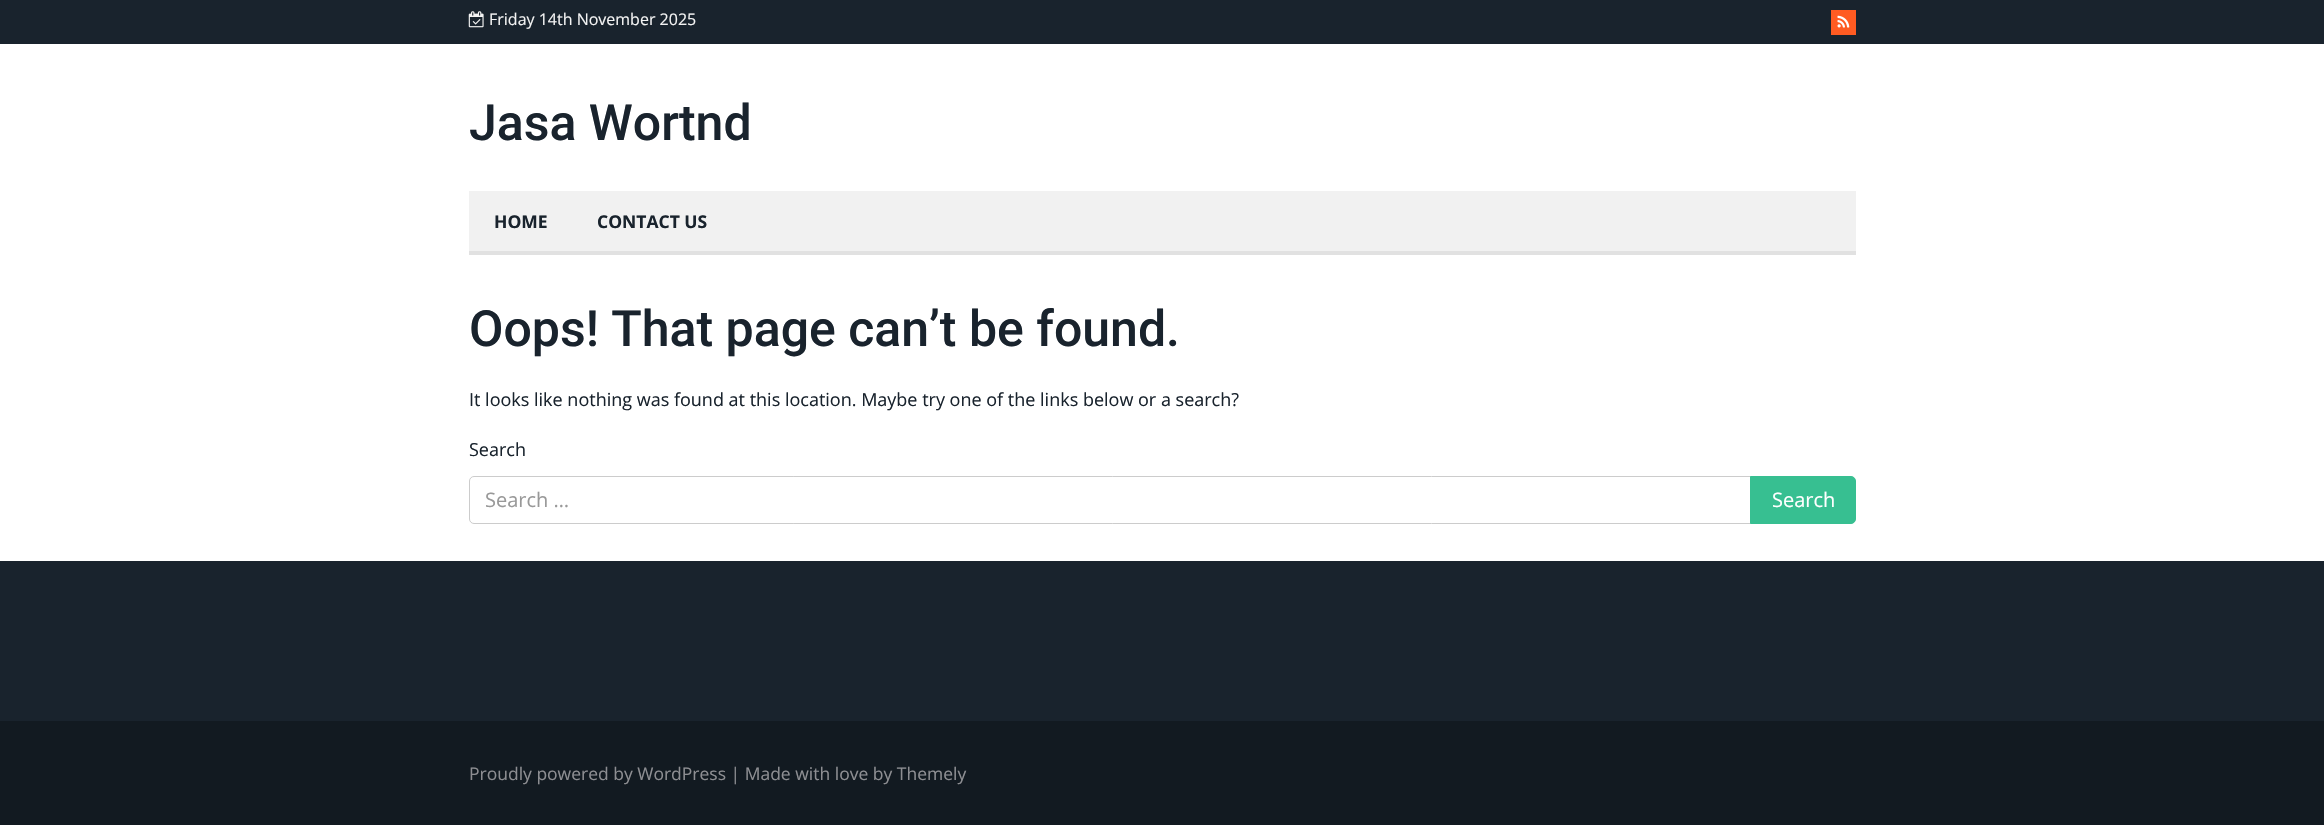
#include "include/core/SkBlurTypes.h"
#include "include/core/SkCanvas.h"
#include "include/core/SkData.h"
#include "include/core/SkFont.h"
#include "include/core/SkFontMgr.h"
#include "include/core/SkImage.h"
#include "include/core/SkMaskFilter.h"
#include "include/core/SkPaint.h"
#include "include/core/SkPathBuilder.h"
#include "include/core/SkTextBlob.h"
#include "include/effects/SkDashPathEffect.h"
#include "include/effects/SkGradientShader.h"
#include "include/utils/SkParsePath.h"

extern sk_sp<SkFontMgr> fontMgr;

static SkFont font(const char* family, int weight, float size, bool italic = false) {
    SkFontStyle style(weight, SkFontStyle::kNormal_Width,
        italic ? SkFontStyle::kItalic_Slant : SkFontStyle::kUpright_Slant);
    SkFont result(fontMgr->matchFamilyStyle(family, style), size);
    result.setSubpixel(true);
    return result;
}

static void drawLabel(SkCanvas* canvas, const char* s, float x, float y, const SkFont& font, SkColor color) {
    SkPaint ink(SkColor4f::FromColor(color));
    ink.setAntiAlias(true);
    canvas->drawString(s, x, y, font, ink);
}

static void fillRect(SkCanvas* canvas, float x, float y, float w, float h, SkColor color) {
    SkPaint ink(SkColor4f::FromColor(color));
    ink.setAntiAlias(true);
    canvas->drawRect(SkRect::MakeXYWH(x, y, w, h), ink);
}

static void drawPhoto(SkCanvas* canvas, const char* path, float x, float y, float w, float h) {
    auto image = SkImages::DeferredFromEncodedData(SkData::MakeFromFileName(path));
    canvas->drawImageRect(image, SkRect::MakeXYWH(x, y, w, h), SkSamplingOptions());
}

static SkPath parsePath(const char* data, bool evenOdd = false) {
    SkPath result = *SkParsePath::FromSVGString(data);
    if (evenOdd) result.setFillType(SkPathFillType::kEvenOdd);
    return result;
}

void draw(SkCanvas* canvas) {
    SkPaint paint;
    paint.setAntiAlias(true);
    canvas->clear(0xFFFFFFFF);
    fillRect(canvas, 0, 0, 2324, 44, 0xFF19232D);
    drawPhoto(canvas, "assets/img1.png", 468, 11, 16, 17);
    SkFont font1 = font("Open Sans", 400, 16);
    drawLabel(canvas, "Friday 14th November 2025", 489, 25, font1, 0xFFF3F3F3);
    fillRect(canvas, 1831, 10, 25, 25, 0xFFFF5B22);
    drawPhoto(canvas, "assets/img2.png", 1837, 15, 13, 13);
    SkFont font2 = font("Roboto", 500, 50);
    drawLabel(canvas, "Jasa Wortnd", 469, 140, font2, 0xFF19232D);
    fillRect(canvas, 469, 191, 1387, 60, 0xFFF1F1F1);
    fillRect(canvas, 469, 251, 1387, 4, 0xFFE1E1E1);
    SkFont font3 = font("Open Sans", 700, 17.5f);
    drawLabel(canvas, "HOME", 494, 228, font3, 0xFF19232D);
    drawLabel(canvas, "CONTACT US", 597, 228, font3, 0xFF19232D);
    drawLabel(canvas, "Oops! That page can’t be found.", 469, 346, font2, 0xFF19232D);
    SkFont font4 = font("Open Sans", 400, 18);
    drawLabel(canvas, "It looks like nothing was found at this location. Maybe try one of the links below or a search?", 469, 406, font4, 0xFF19232D);
    drawLabel(canvas, "Search", 469, 456, font4, 0xFF19232D);
    paint.setStroke(true);
    paint.setStrokeWidth(1);
    paint.setColor(0xFFCCCCCC);
    canvas->drawPath(parsePath("M474 476.5H1750.5V523.5H474C471.5 523.5 469.5 521.5 469.5 519V481C469.5 478.5 471.5 476.5 474 476.5Z"), paint);
    SkFont font5 = font("Open Sans", 400, 20);
    drawLabel(canvas, "Search …", 485, 507, font5, 0xFF999999);
    paint.setStroke(false);
    paint.setColor(0xFF37BF91);
    canvas->drawPath(parsePath("M1750.5 476.5H1851C1853.5 476.5 1855.5 478.5 1855.5 481V519C1855.5 521.5 1853.5 523.5 1851 523.5H1750.5Z"), paint);
    paint.setStroke(true);
    canvas->drawPath(parsePath("M1750.5 476.5H1851C1853.5 476.5 1855.5 478.5 1855.5 481V519C1855.5 521.5 1853.5 523.5 1851 523.5H1750.5Z"), paint);
    drawLabel(canvas, "Search", 1772, 507, font5, 0xFFFFFFFF);
    fillRect(canvas, 0, 561, 2324, 160, 0xFF19232D);
    fillRect(canvas, 0, 721, 2324, 104, 0xFF121A21);
    SkFont font6 = font("Open Sans", 400, 17.5f);
    drawLabel(canvas, "Proudly powered by WordPress | Made with love by Themely", 469, 780, font6, 0xFF8D8E92);
}
